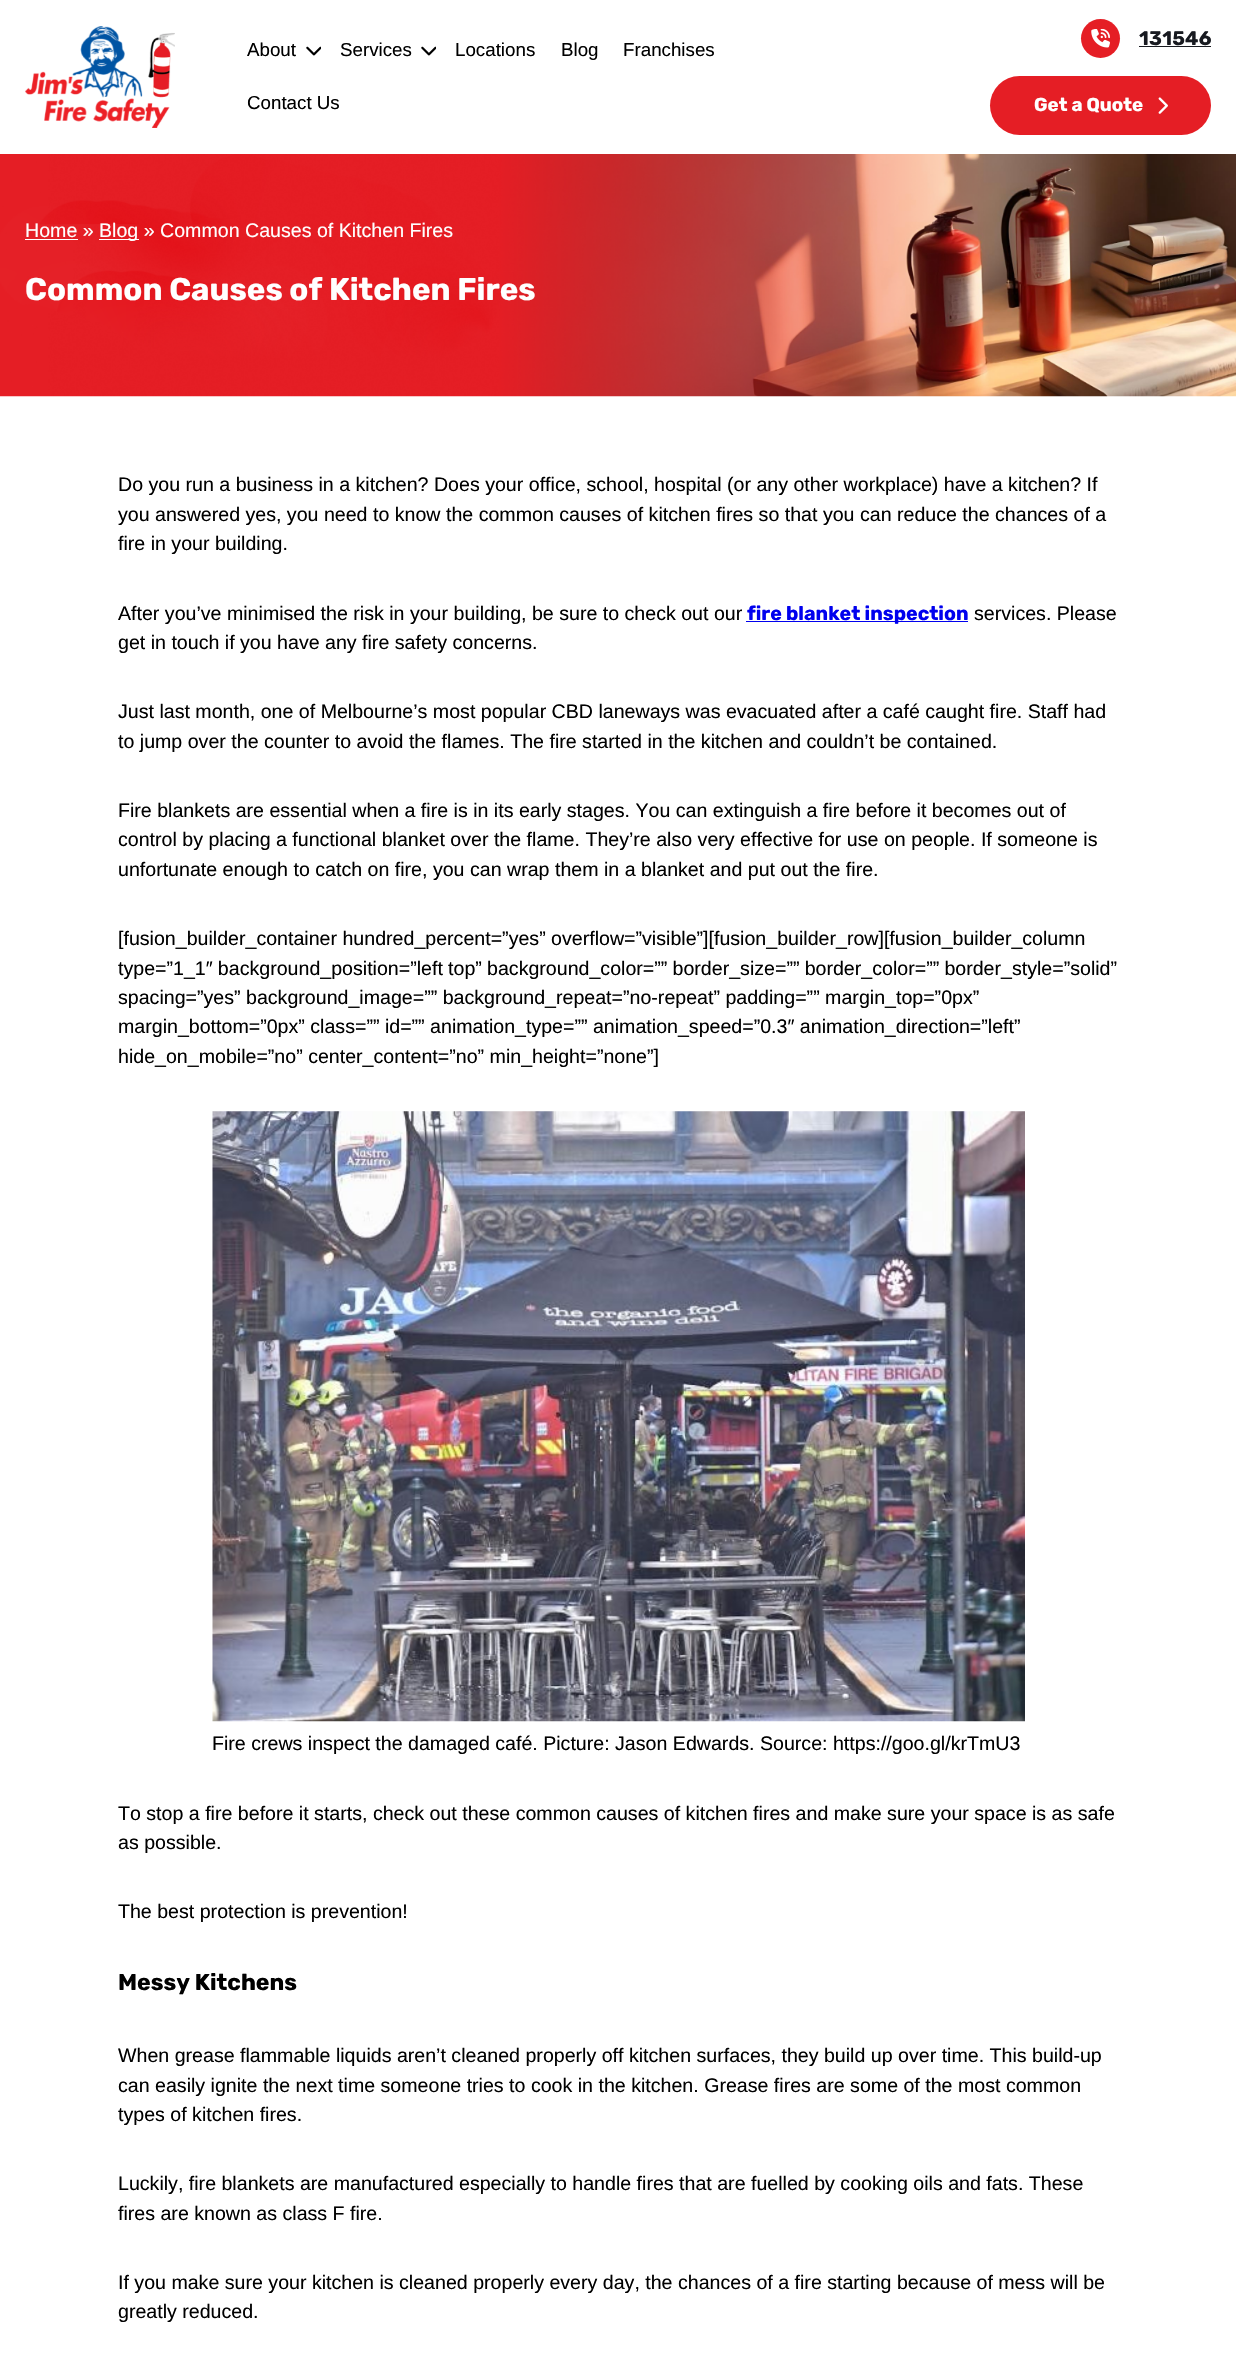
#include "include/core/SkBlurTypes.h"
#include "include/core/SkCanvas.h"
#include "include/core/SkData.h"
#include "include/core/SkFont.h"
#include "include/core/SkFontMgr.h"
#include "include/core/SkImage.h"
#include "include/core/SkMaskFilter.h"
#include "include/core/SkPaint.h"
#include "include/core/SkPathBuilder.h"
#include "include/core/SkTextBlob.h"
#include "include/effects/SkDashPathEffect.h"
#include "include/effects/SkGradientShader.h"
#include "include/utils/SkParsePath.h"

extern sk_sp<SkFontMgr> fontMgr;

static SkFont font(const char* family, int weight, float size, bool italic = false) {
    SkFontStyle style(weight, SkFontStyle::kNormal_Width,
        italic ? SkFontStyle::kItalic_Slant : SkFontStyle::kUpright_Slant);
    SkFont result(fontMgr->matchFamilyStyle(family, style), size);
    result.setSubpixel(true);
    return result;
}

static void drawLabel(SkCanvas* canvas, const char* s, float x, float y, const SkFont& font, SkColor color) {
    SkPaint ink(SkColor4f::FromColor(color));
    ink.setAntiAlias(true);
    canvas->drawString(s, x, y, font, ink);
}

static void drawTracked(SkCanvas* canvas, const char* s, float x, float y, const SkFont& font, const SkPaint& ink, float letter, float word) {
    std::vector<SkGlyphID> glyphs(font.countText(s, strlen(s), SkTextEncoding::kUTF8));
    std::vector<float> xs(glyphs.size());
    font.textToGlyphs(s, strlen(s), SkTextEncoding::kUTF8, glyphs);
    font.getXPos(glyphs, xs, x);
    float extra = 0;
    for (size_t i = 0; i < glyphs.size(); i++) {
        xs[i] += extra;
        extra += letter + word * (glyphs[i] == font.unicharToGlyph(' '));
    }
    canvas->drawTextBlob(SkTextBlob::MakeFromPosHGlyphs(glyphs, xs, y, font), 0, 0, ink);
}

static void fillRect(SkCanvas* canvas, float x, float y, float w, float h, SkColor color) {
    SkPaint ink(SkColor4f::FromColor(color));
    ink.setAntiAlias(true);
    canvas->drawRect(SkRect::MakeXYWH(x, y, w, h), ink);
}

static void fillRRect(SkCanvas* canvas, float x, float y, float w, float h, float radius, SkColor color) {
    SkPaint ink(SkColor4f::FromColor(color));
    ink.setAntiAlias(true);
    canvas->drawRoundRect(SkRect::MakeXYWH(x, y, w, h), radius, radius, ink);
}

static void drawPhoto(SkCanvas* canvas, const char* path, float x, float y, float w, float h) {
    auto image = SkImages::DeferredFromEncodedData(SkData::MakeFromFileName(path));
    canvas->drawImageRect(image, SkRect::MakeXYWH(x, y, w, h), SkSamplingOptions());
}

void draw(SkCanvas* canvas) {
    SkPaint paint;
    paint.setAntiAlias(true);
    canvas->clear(0xFFFFFFFF);
    drawPhoto(canvas, "assets/img1.png", 25, 26, 150, 102);
    SkFont font1 = font("Liberation Sans", 400, 18.75f);
    drawLabel(canvas, "About", 247, 56, font1, 0xFF000000);
    drawPhoto(canvas, "assets/img2.png", 306, 46, 15, 10);
    drawLabel(canvas, "Services", 340, 56, font1, 0xFF000000);
    drawPhoto(canvas, "assets/img2.png", 421, 46, 15, 10);
    drawLabel(canvas, "Locations", 455, 56, font1, 0xFF000000);
    drawLabel(canvas, "Blog", 561, 56, font1, 0xFF000000);
    drawLabel(canvas, "Franchises", 623, 56, font1, 0xFF000000);
    drawLabel(canvas, "Contact Us", 247, 109, font1, 0xFF000000);
    paint.setColor(0xFFE51E25);
    canvas->drawCircle(1100.5f, 38.5f, 19.5f, paint);
    drawPhoto(canvas, "assets/img3.png", 1091, 29, 19, 19);
    SkFont font2 = font("Rubik", 700, 19.6f);
    paint.setColor(0xFF181A20);
    drawTracked(canvas, "131546", 1139, 45, font2, paint, 0.25f, 0);
    fillRect(canvas, 1139, 46, 72, 1, 0xFF181A20);
    fillRRect(canvas, 990, 76, 221, 59, 29.5f, 0xFFE51E25);
    SkFont font3 = font("Rubik", 700, 18.75f);
    drawLabel(canvas, "Get a Quote", 1034, 111, font3, 0xFFFFFFFF);
    drawPhoto(canvas, "assets/img4.png", 1158, 97, 10, 17);
    drawPhoto(canvas, "assets/img5.png", 0, 154, 1236, 243);
    SkFont font4 = font("Liberation Sans", 400, 19.6f);
    drawLabel(canvas, "Home »", 25, 237, font4, 0xFFFFFFFF);
    fillRect(canvas, 25, 239, 53, 1, 0xFFFFFFFF);
    fillRect(canvas, 99, 239, 40, 1, 0xFFFFFFFF);
    drawLabel(canvas, "Blog » Common Causes of Kitchen Fires", 99, 237, font4, 0xFFFFFFFF);
    SkFont font5 = font("Rubik", 700, 31.25f);
    drawLabel(canvas, "Common Causes of Kitchen Fires", 25, 300, font5, 0xFFFFFFFF);
    drawLabel(canvas, "Do you run a business in a kitchen? Does your office, school, hospital (or any other workplace) have a kitchen? If", 118, 491, font4, 0xFF000000);
    drawLabel(canvas, "you answered yes, you need to know the common causes of kitchen fires so that you can reduce the chances of a", 118, 521, font4, 0xFF000000);
    drawLabel(canvas, "fire in your building.", 118, 550, font4, 0xFF000000);
    drawLabel(canvas, "After you’ve minimised the risk in your building, be sure to check out our", 118, 620, font4, 0xFF000000);
    fillRect(canvas, 746, 621, 222, 1, 0xFF0000EE);
    drawLabel(canvas, "fire blanket inspection", 747, 620, font2, 0xFF0000EE);
    drawLabel(canvas, "services. Please", 974, 620, font4, 0xFF000000);
    drawLabel(canvas, "get in touch if you have any fire safety concerns.", 118, 649, font4, 0xFF000000);
    drawLabel(canvas, "Just last month, one of Melbourne’s most popular CBD laneways was evacuated after a café caught fire. Staff had", 118, 718, font4, 0xFF000000);
    drawLabel(canvas, "to jump over the counter to avoid the flames. The fire started in the kitchen and couldn’t be contained.", 118, 748, font4, 0xFF000000);
    drawLabel(canvas, "Fire blankets are essential when a fire is in its early stages. You can extinguish a fire before it becomes out of", 118, 817, font4, 0xFF000000);
    drawLabel(canvas, "control by placing a functional blanket over the flame. They’re also very effective for use on people. If someone is", 118, 846, font4, 0xFF000000);
    drawLabel(canvas, "unfortunate enough to catch on fire, you can wrap them in a blanket and put out the fire.", 118, 876, font4, 0xFF000000);
    drawLabel(canvas, "[fusion_builder_container hundred_percent=”yes” overflow=”visible”][fusion_builder_row][fusion_builder_column", 118, 945, font4, 0xFF000000);
    paint.setColor(0xFF000000);
    drawTracked(canvas, "type=”1_1″ background_position=”left top” background_color=”” border_size=”” border_color=”” border_style=”solid”", 118, 975, font4, paint, 0, -0.25f);
    drawLabel(canvas, "spacing=”yes” background_image=”” background_repeat=”no-repeat” padding=”” margin_top=”0px”", 118, 1004, font4, 0xFF000000);
    drawLabel(canvas, "margin_bottom=”0px” class=”” id=”” animation_type=”” animation_speed=”0.3″ animation_direction=”left”", 118, 1033, font4, 0xFF000000);
    drawLabel(canvas, "hide_on_mobile=”no” center_content=”no” min_height=”none”]", 118, 1063, font4, 0xFF000000);
    drawPhoto(canvas, "assets/img6.png", 212, 1111, 813, 611);
    drawLabel(canvas, "Fire crews inspect the damaged café. Picture: Jason Edwards. Source: https://goo.gl/krTmU3", 212, 1750, font4, 0xFF000000);
    drawLabel(canvas, "To stop a fire before it starts, check out these common causes of kitchen fires and make sure your space is as safe", 118, 1820, font4, 0xFF000000);
    drawLabel(canvas, "as possible.", 118, 1849, font4, 0xFF000000);
    drawLabel(canvas, "The best protection is prevention!", 118, 1918, font4, 0xFF000000);
    SkFont font6 = font("Rubik", 700, 23);
    drawLabel(canvas, "Messy Kitchens", 118, 1990, font6, 0xFF000000);
    drawLabel(canvas, "When grease flammable liquids aren’t cleaned properly off kitchen surfaces, they build up over time. This build-up", 118, 2062, font4, 0xFF000000);
    drawLabel(canvas, "can easily ignite the next time someone tries to cook in the kitchen. Grease fires are some of the most common", 118, 2092, font4, 0xFF000000);
    drawLabel(canvas, "types of kitchen fires.", 118, 2121, font4, 0xFF000000);
    drawLabel(canvas, "Luckily, fire blankets are manufactured especially to handle fires that are fuelled by cooking oils and fats. These", 118, 2190, font4, 0xFF000000);
    drawLabel(canvas, "fires are known as class F fire.", 118, 2220, font4, 0xFF000000);
    drawLabel(canvas, "If you make sure your kitchen is cleaned properly every day, the chances of a fire starting because of mess will be", 118, 2289, font4, 0xFF000000);
    drawLabel(canvas, "greatly reduced.", 118, 2318, font4, 0xFF000000);
}
